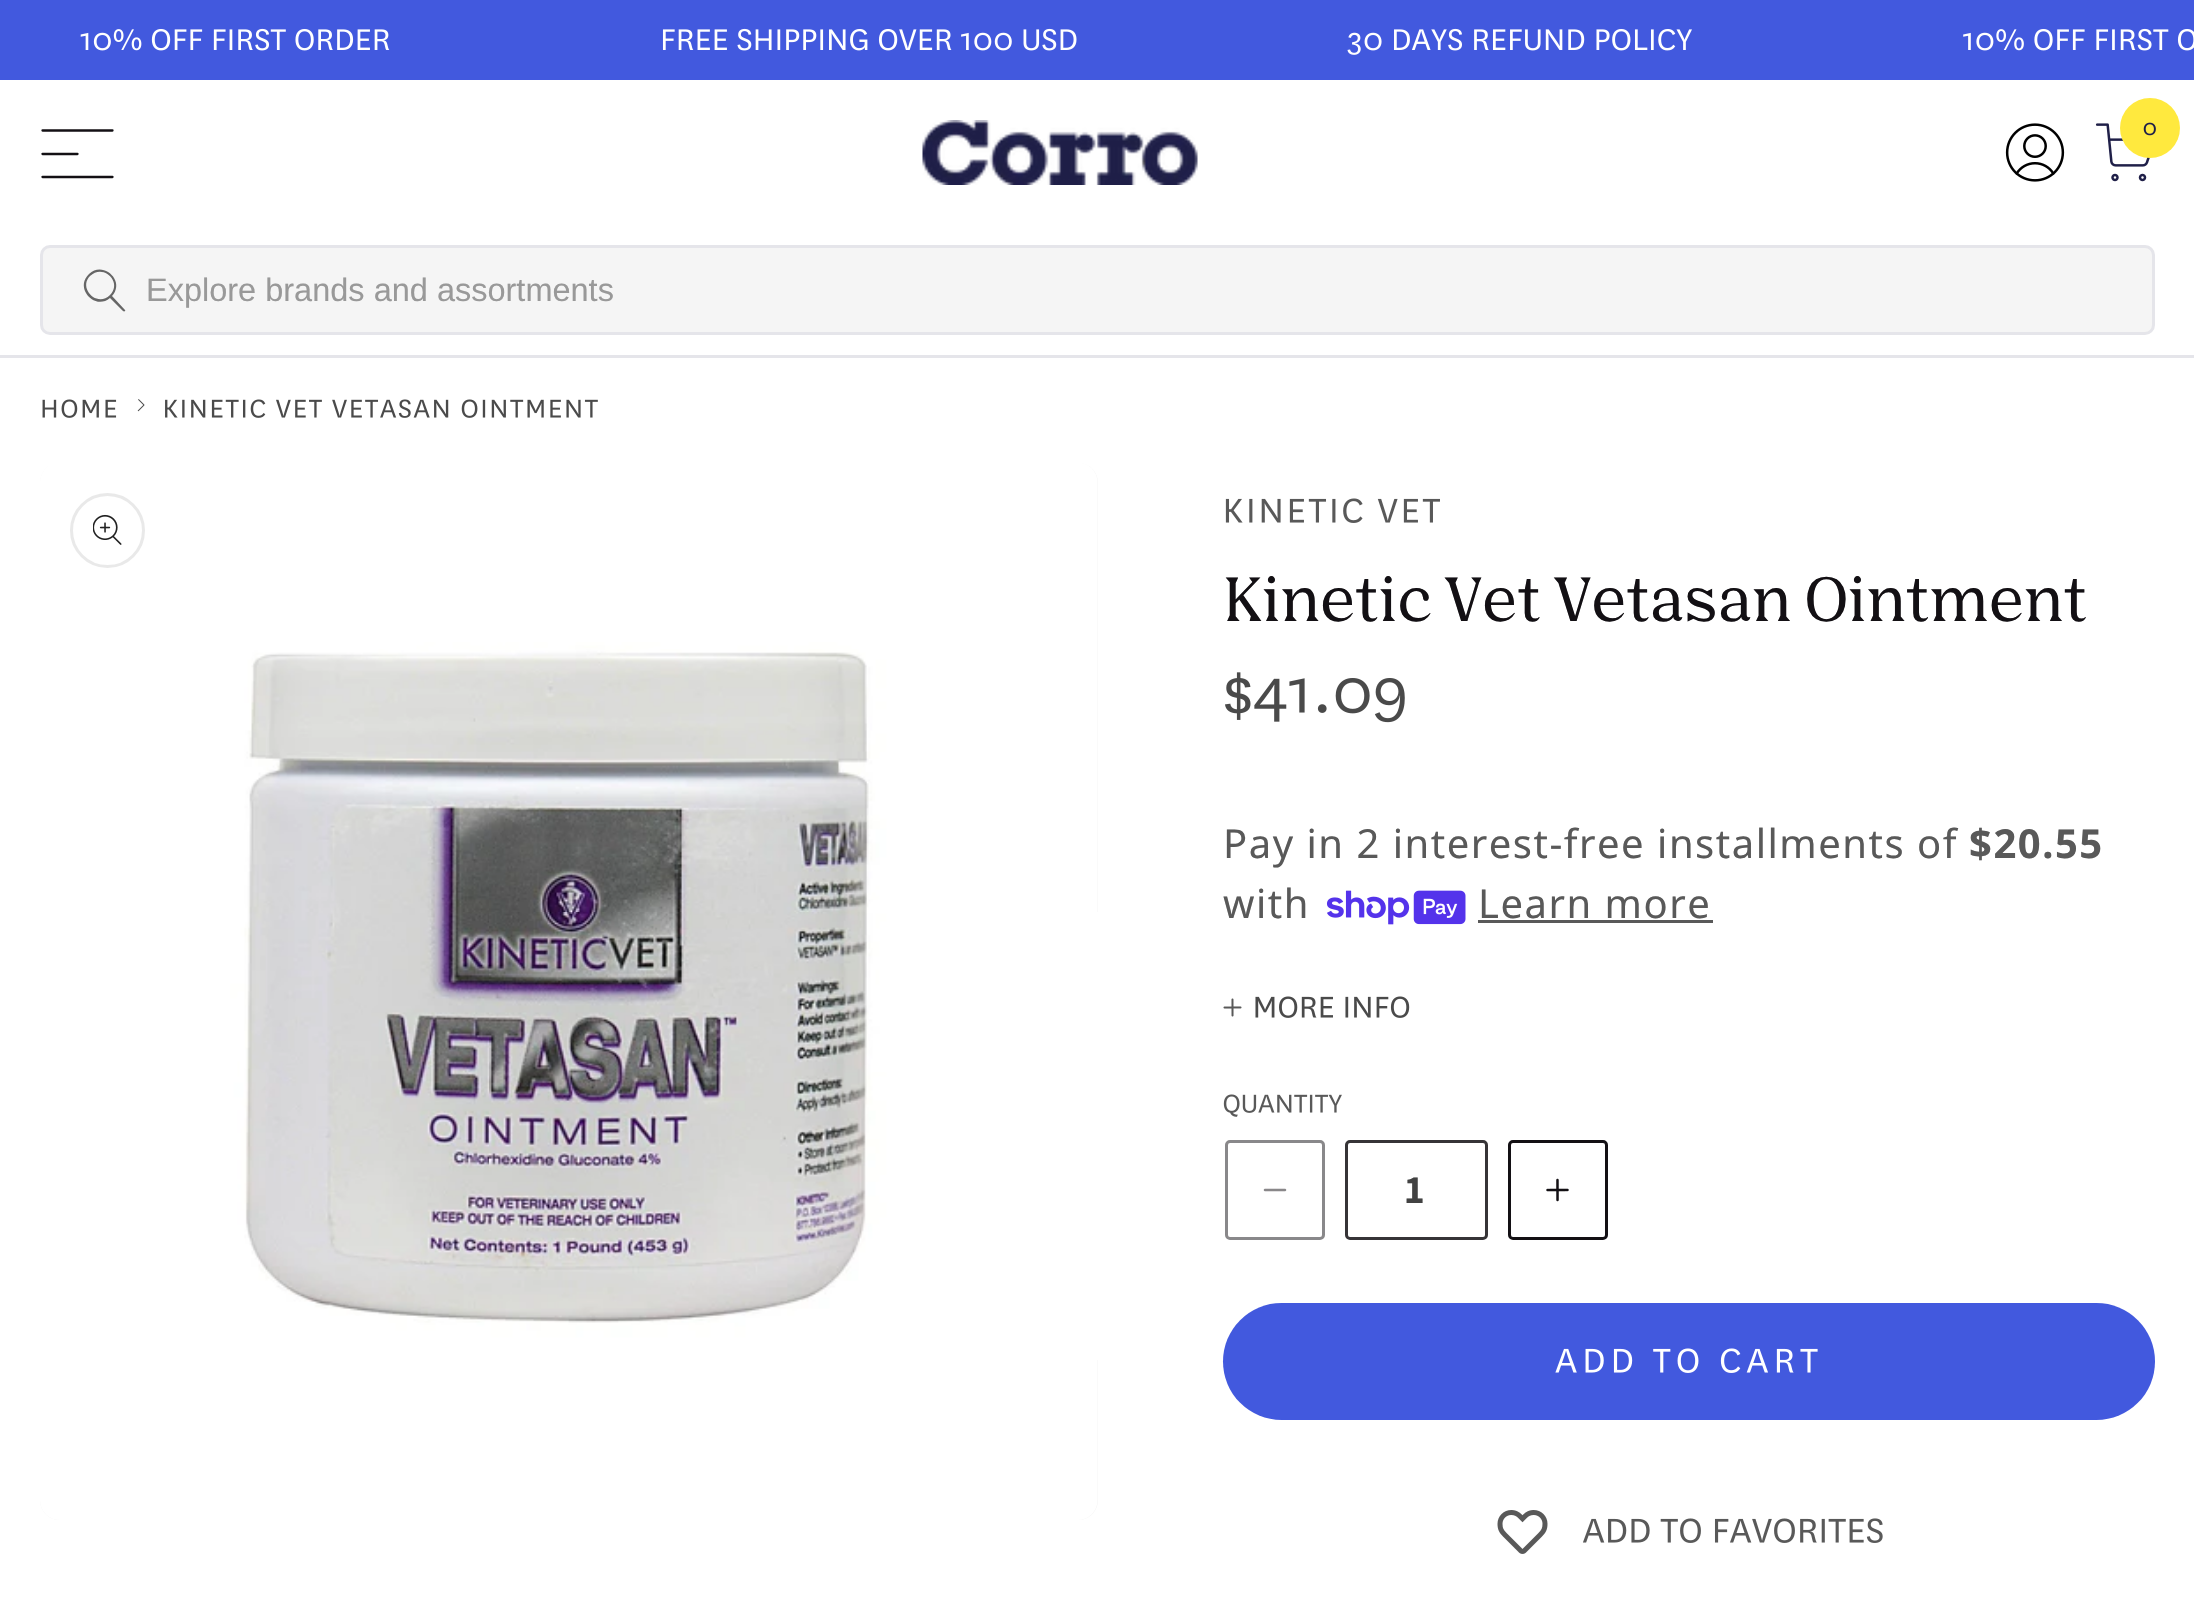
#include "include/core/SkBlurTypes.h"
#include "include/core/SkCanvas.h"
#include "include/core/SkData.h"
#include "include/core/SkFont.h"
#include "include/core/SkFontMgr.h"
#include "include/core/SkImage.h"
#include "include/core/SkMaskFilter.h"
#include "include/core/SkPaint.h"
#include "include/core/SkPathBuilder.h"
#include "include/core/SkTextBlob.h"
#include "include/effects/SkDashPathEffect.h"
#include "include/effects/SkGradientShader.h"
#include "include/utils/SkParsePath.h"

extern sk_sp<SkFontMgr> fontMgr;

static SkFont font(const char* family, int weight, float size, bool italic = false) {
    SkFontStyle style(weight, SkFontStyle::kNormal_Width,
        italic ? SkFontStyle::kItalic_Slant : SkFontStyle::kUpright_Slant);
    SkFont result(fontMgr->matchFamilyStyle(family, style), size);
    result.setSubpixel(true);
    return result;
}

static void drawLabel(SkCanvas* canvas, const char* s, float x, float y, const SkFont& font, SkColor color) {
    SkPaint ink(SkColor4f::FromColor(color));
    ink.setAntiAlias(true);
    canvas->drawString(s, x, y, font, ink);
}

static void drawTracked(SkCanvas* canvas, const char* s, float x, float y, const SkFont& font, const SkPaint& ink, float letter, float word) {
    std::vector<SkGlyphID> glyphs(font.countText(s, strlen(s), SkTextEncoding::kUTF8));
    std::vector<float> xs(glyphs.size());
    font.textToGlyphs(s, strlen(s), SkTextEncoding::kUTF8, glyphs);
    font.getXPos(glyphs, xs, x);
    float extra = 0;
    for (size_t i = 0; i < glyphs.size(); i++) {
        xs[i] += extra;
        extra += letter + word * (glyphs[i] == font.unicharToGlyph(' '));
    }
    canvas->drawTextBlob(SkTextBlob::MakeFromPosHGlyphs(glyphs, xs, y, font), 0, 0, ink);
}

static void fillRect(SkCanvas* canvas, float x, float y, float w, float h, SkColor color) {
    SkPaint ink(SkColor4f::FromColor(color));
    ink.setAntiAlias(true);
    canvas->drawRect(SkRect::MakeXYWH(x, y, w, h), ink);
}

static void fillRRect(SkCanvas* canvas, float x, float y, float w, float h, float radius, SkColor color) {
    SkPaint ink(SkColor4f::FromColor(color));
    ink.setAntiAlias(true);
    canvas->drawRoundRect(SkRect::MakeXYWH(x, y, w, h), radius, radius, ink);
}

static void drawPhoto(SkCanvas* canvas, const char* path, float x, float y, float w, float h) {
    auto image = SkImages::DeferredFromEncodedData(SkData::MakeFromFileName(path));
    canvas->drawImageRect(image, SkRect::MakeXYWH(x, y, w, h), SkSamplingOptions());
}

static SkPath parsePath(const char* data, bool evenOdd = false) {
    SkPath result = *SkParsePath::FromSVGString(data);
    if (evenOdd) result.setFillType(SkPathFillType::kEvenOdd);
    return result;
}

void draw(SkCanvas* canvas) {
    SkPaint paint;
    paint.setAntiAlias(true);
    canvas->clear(0xFFFFFFFF);
    fillRect(canvas, 0, 0, 2194, 80, 0xFF4259DE);
    drawPhoto(canvas, "assets/img1.png", 80, 28, 310, 23);
    drawPhoto(canvas, "assets/img2.png", 662, 28, 415, 23);
    drawPhoto(canvas, "assets/img3.png", 1347, 28, 345, 27);
    drawPhoto(canvas, "assets/img4.png", 1963, 28, 231, 23);
    fillRect(canvas, 0, 355, 2194, 3, 0xFFE5E5EA);
    paint.setStroke(true);
    paint.setStrokeWidth(2.3f);
    paint.setStrokeCap(SkPaint::kRound_Cap);
    paint.setColor(0xFF131014);
    canvas->drawPath(parsePath("M42.5 130.5H112.5"), paint);
    canvas->drawPath(parsePath("M42.5 154H77.5"), paint);
    canvas->drawPath(parsePath("M42.5 177H112.5"), paint);
    drawPhoto(canvas, "assets/img5.png", 922, 120, 276, 65);
    drawPhoto(canvas, "assets/img6.png", 2005, 123, 60, 59);
    drawPhoto(canvas, "assets/img8.png", 2095, 123, 55, 59);
    paint.setStroke(false);
    paint.setColor(0xFFFFE93E);
    canvas->drawCircle(2150, 128, 30, paint);
    drawPhoto(canvas, "assets/img7.png", 2143, 122, 13, 14);
    paint.setColor(0xFFF5F5F5);
    canvas->drawRoundRect(SkRect::MakeXYWH(41.5f, 246.5f, 2112, 87), 8.5f, 8.5f, paint);
    paint.setStroke(true);
    paint.setStrokeWidth(3);
    paint.setStrokeCap(SkPaint::kButt_Cap);
    paint.setColor(0xFFE5E5EA);
    canvas->drawRoundRect(SkRect::MakeXYWH(41.5f, 246.5f, 2112, 87), 8.5f, 8.5f, paint);
    paint.setStroke(false);
    paint.setColor(0xFF666666);
    canvas->drawPath(parsePath("M110 295C97 308 78 288 90 276C103 263 123 282 110 295M110 298C95 311 74 288 89 274C103 260 126 281 112 296L125 310C126 311 124 312 123 311Z", true), paint);
    SkFont font1 = font("Liberation Sans", 400, 32.5f);
    drawLabel(canvas, "Explore brands and assortments", 146, 301, font1, 0xFF999999);
    drawPhoto(canvas, "assets/img9.png", 42, 399, 75, 19);
    drawPhoto(canvas, "assets/img10.png", 137, 399, 8, 13);
    drawPhoto(canvas, "assets/img11.png", 165, 399, 433, 19);
    fillRRect(canvas, 40, 463, 1058, 1057, 20, 0xFFF5F5F5);
    drawPhoto(canvas, "assets/img12.png", 40, 463, 1058, 1057);
    paint.setStroke(true);
    paint.setColor(0xFFE9E9E9);
    canvas->drawCircle(107.5f, 530.5f, 36, paint);
    drawPhoto(canvas, "assets/img13.png", 93, 514, 29, 31);
    drawPhoto(canvas, "assets/img14.png", 1225, 498, 215, 25);
    SkFont font2 = font("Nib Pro", 600, 60);
    paint.setStroke(false);
    paint.setColor(0xFF131014);
    drawTracked(canvas, "Kinetic Vet Vetasan Ointment", 1223, 621, font2, paint, 0.5f, 0);
    drawPhoto(canvas, "assets/img15.png", 1225, 672, 180, 51);
    SkFont font3 = font("Noto Sans", 400, 40);
    paint.setColor(0xFF595959);
    drawTracked(canvas, "Pay in 2 interest-free installments of", 1223, 858, font3, paint, 1.5f, 0);
    SkFont font4 = font("Noto Sans", 700, 40);
    drawTracked(canvas, "$20.55", 1969, 858, font4, paint, 1.5f, 0);
    drawTracked(canvas, "with", 1223, 918, font3, paint, 1.5f, 0);
    drawPhoto(canvas, "assets/img16.png", 1326, 890, 140, 35);
    drawTracked(canvas, "Learn more", 1478, 918, font3, paint, 1.5f, 0);
    fillRect(canvas, 1478, 920, 235, 3, 0xFF595959);
    drawPhoto(canvas, "assets/img17.png", 1223, 998, 19, 19);
    drawPhoto(canvas, "assets/img18.png", 1255, 996, 155, 22);
    drawPhoto(canvas, "assets/img19.png", 1223, 1094, 119, 23);
    paint.setStroke(true);
    paint.setColor(0xFF89888A);
    canvas->drawRoundRect(SkRect::MakeXYWH(1226.5f, 1141.5f, 97, 97), 3.5f, 3.5f, paint);
    drawPhoto(canvas, "assets/img20.png", 1263, 1188, 24, 4);
    paint.setColor(0xFF363437);
    canvas->drawRoundRect(SkRect::MakeXYWH(1346.5f, 1141.5f, 140, 97), 3.5f, 3.5f, paint);
    SkFont font5 = font("Assistant", 700, 40);
    paint.setStroke(false);
    paint.setColor(0xFF424242);
    drawTracked(canvas, "1", 1405, 1203, font5, paint, 2, 0);
    paint.setStroke(true);
    paint.setColor(0xFF131014);
    canvas->drawRoundRect(SkRect::MakeXYWH(1509.5f, 1141.5f, 97, 97), 3.5f, 3.5f, paint);
    drawPhoto(canvas, "assets/img21.png", 1546, 1178, 23, 24);
    fillRRect(canvas, 1223, 1303, 932, 117, 58.5f, 0xFF4259DE);
    drawPhoto(canvas, "assets/img22.png", 1555, 1348, 263, 25);
    drawPhoto(canvas, "assets/img23.png", 1497, 1510, 51, 44);
    drawPhoto(canvas, "assets/img24.png", 1583, 1518, 300, 25);
}
